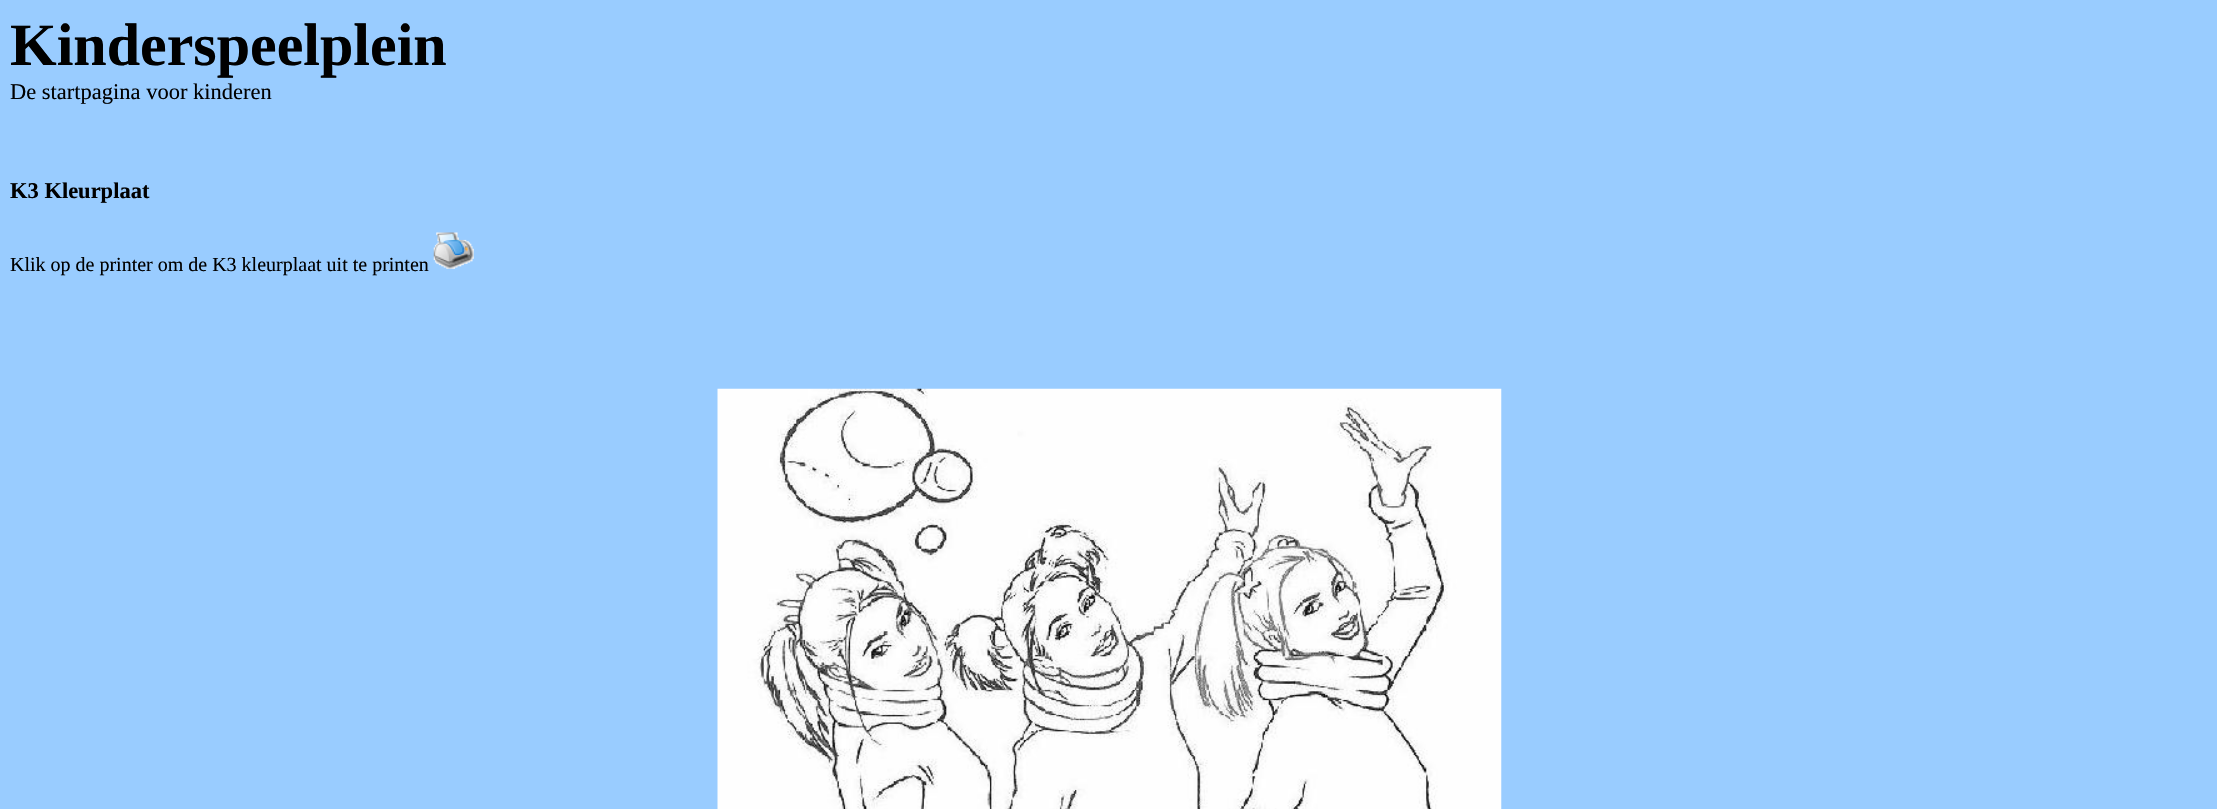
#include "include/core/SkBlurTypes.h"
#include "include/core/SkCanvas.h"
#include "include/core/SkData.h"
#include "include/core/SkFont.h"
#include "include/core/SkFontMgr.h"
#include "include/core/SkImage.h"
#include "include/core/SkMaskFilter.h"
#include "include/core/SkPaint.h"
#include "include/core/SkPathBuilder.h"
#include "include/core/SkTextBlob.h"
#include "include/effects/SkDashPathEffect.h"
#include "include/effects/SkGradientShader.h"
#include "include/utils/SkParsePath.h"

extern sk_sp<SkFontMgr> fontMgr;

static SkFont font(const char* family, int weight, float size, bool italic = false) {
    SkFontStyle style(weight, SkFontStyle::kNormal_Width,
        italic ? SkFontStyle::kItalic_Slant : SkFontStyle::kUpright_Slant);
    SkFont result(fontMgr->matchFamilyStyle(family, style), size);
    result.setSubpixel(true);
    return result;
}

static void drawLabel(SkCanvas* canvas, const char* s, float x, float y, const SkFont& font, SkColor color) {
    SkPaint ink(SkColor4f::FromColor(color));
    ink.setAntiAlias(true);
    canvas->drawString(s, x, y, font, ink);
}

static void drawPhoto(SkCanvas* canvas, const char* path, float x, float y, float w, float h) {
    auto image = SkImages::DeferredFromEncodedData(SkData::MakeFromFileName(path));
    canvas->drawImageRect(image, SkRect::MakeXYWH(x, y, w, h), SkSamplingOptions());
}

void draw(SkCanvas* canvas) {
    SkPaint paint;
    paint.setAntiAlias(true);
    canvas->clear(0xFF99CCFF);
    SkFont font1 = font("Liberation Serif", 700, 60);
    drawLabel(canvas, "Kinderspeelplein", 10, 65, font1, 0xFF000000);
    SkFont font2 = font("Liberation Serif", 400, 22.5f);
    drawLabel(canvas, "De startpagina voor kinderen", 10, 99, font2, 0xFF000000);
    SkFont font3 = font("Liberation Serif", 700, 22.5f);
    drawLabel(canvas, "K3 Kleurplaat", 10, 198, font3, 0xFF000000);
    SkFont font4 = font("Liberation Serif", 400, 20);
    drawLabel(canvas, "Klik op de printer om de K3 kleurplaat uit te printen", 10, 271, font4, 0xFF000000);
    drawPhoto(canvas, "assets/img1.png", 433, 232, 41, 37);
    drawPhoto(canvas, "assets/img2.png", 717, 388, 785, 421);
}
